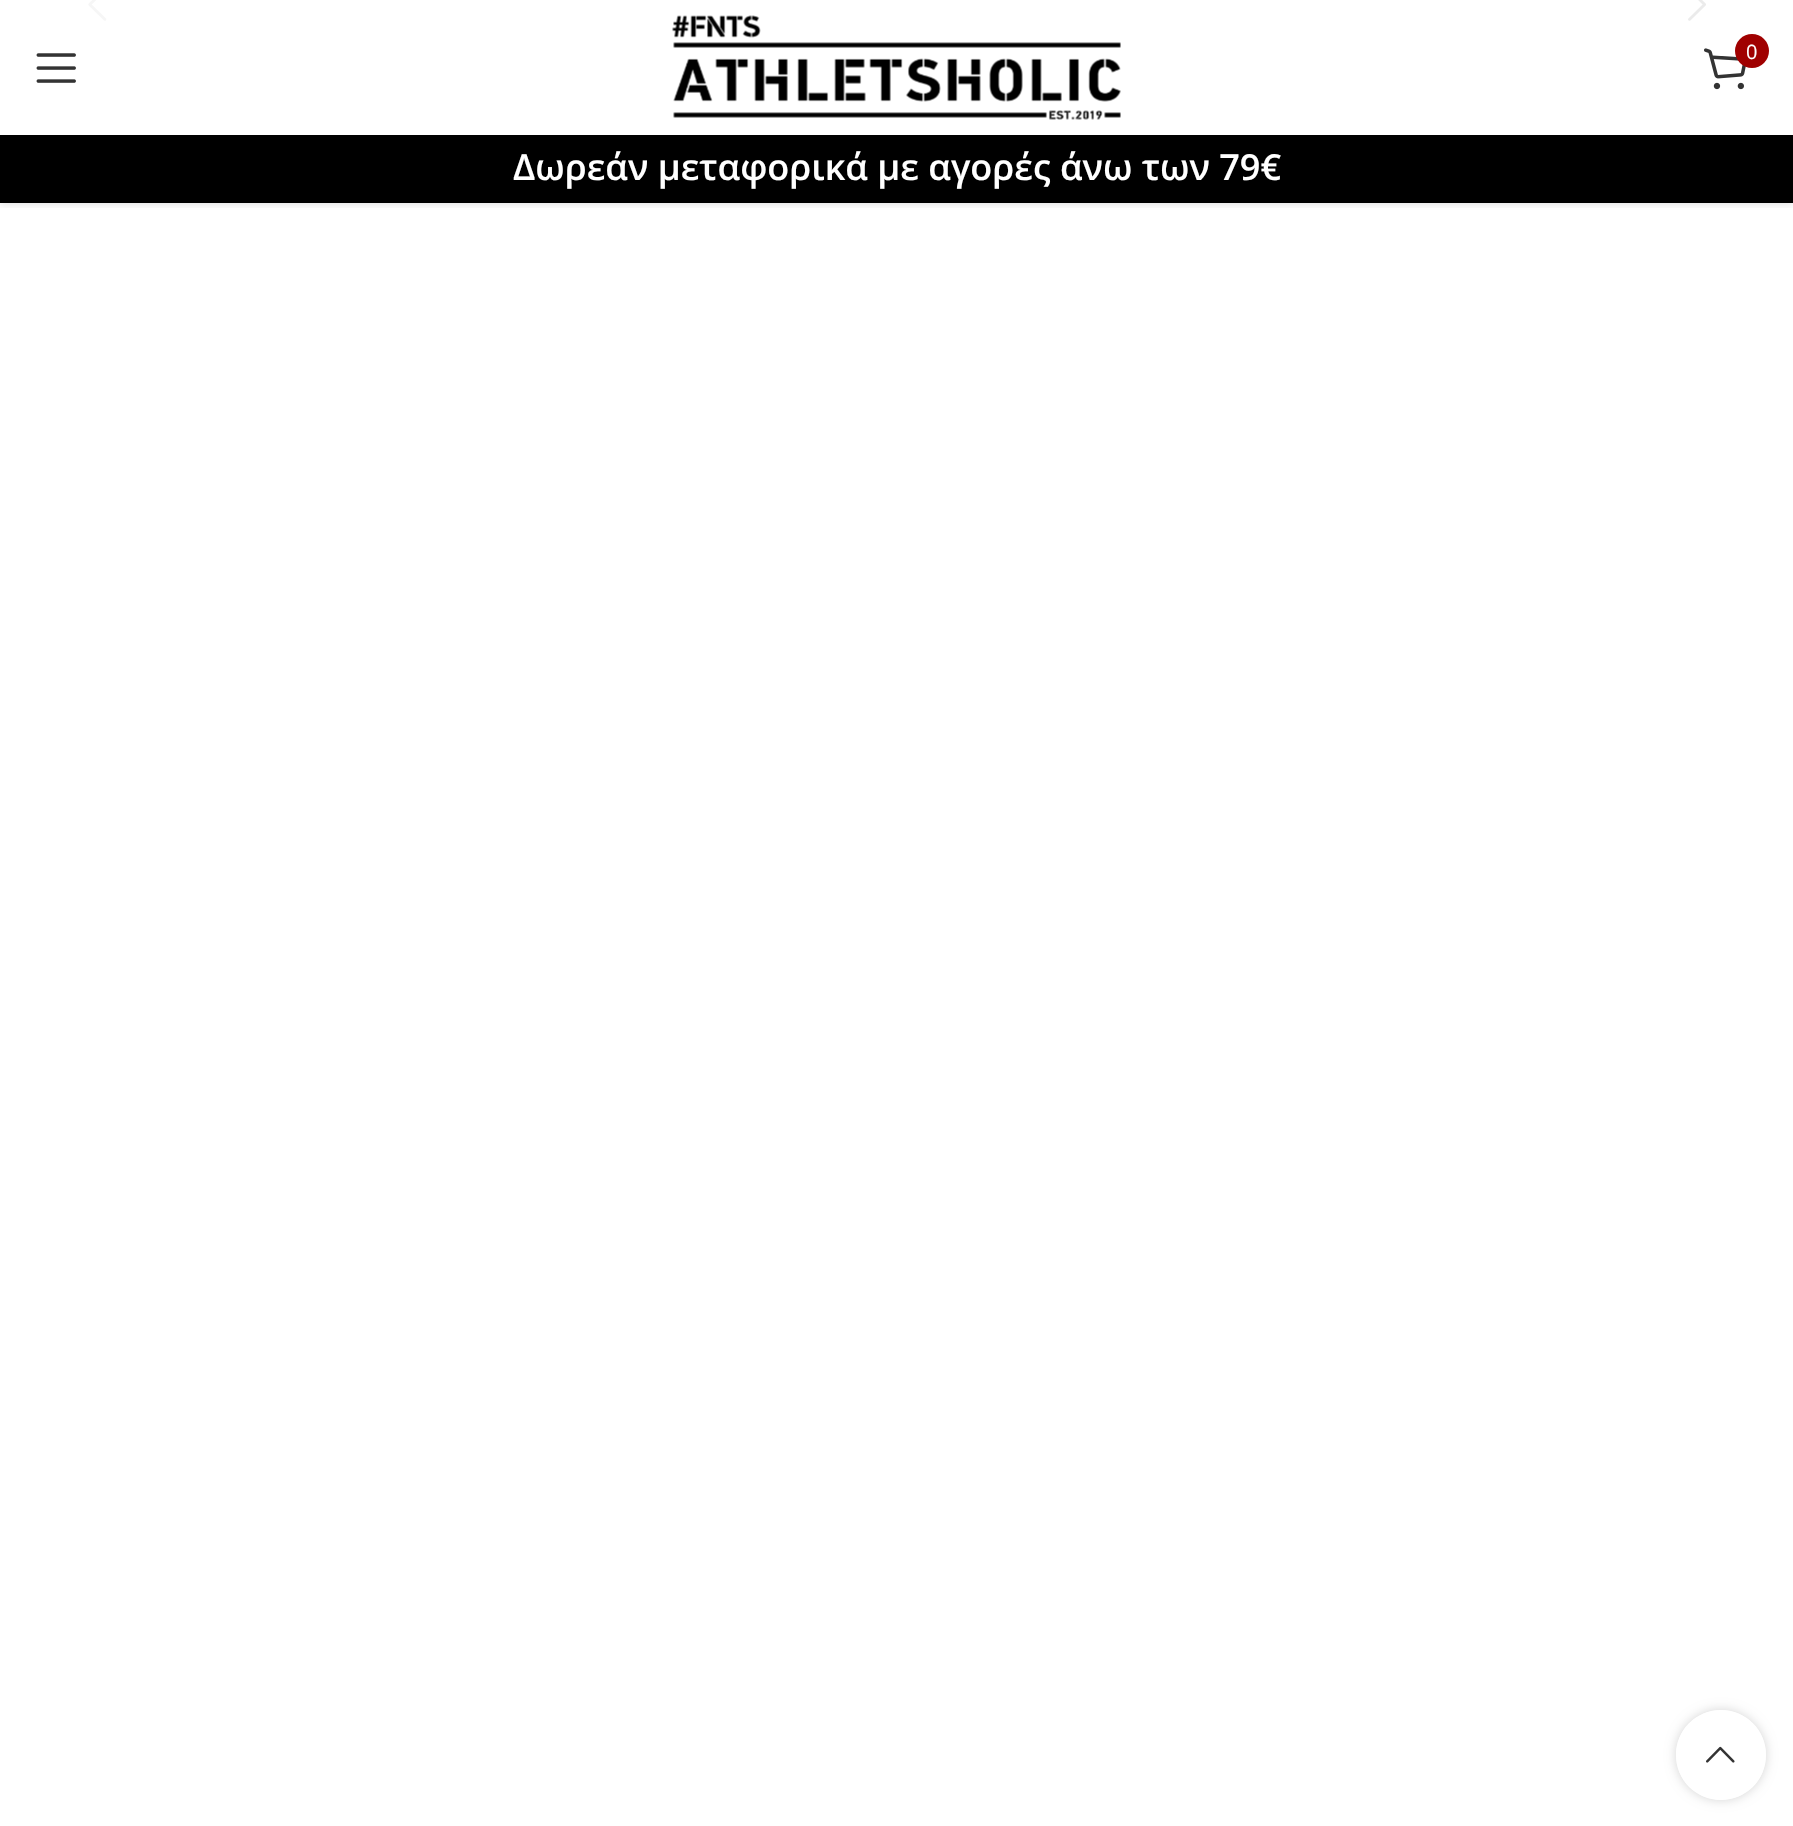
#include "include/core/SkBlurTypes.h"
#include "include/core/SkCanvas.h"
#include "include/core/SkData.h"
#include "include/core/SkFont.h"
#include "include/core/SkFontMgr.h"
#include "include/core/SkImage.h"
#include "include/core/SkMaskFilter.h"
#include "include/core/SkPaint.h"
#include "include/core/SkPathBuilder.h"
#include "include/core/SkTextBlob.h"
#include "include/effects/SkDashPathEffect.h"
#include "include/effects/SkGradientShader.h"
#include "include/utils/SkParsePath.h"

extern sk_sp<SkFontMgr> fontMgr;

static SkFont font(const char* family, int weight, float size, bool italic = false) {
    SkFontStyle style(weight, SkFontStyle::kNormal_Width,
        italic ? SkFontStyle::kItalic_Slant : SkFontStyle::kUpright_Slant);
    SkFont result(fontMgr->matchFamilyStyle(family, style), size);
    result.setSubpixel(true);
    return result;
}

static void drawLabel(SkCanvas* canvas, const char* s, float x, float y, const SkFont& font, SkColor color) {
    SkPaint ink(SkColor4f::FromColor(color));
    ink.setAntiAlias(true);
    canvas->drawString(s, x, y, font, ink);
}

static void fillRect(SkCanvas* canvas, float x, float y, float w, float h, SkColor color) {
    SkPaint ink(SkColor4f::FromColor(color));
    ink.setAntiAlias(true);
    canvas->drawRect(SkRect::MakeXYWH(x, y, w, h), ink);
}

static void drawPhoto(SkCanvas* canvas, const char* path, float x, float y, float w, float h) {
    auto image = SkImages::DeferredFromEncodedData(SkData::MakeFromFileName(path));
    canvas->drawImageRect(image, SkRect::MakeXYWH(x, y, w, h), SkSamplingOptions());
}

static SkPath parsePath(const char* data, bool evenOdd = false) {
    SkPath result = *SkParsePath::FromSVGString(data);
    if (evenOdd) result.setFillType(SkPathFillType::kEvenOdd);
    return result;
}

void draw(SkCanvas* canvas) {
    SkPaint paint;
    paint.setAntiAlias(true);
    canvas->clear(0xFFFFFFFF);
    drawPhoto(canvas, "assets/img1.png", 88, 0, 19, 21);
    drawPhoto(canvas, "assets/img2.png", 1688, 0, 18, 21);
    canvas->save();
    canvas->clipRect(SkRect::MakeXYWH(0, 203, 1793, 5));
    paint.setColor(0x1A000000);
    paint.setMaskFilter(SkMaskFilter::MakeBlur(kNormal_SkBlurStyle, 3.5f));
    canvas->drawRect(SkRect::MakeXYWH(0, 2, 1793, 203), paint);
    paint.setMaskFilter(nullptr);
    canvas->restore();
    drawPhoto(canvas, "assets/img3.png", 36, 53, 40, 30);
    drawPhoto(canvas, "assets/img4.png", 672, 15, 449, 105);
    drawPhoto(canvas, "assets/img5.png", 1704, 48, 42, 42);
    paint.setColor(0xFFA00000);
    canvas->drawCircle(1752, 51, 17, paint);
    SkFont font1 = font("Open Sans", 400, 20);
    drawLabel(canvas, "0", 1746, 59, font1, 0xFFFFFFFF);
    fillRect(canvas, 0, 135, 1793, 68, 0xFF000000);
    SkFont font2 = font("Open Sans", 600, 36);
    drawLabel(canvas, "Δωρεάν μεταφορικά με αγορές άνω των 79€", 513, 180, font2, 0xFFFFFFFF);
    canvas->save();
    canvas->clipPath(parsePath("M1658 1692H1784V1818H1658ZM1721 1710C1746 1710 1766 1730 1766 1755C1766 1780 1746 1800 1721 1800C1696 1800 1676 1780 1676 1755C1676 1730 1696 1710 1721 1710Z", true), true);
    paint.setColor(0x2B000000);
    paint.setMaskFilter(SkMaskFilter::MakeBlur(kNormal_SkBlurStyle, 5.5f));
    canvas->drawRoundRect(SkRect::MakeXYWH(1676, 1710, 90, 90), 45, 45, paint);
    paint.setMaskFilter(nullptr);
    canvas->restore();
    paint.setColor(0xE6FFFFFF);
    canvas->drawCircle(1721, 1755, 45, paint);
    drawPhoto(canvas, "assets/img6.png", 1706, 1746, 29, 17);
}
